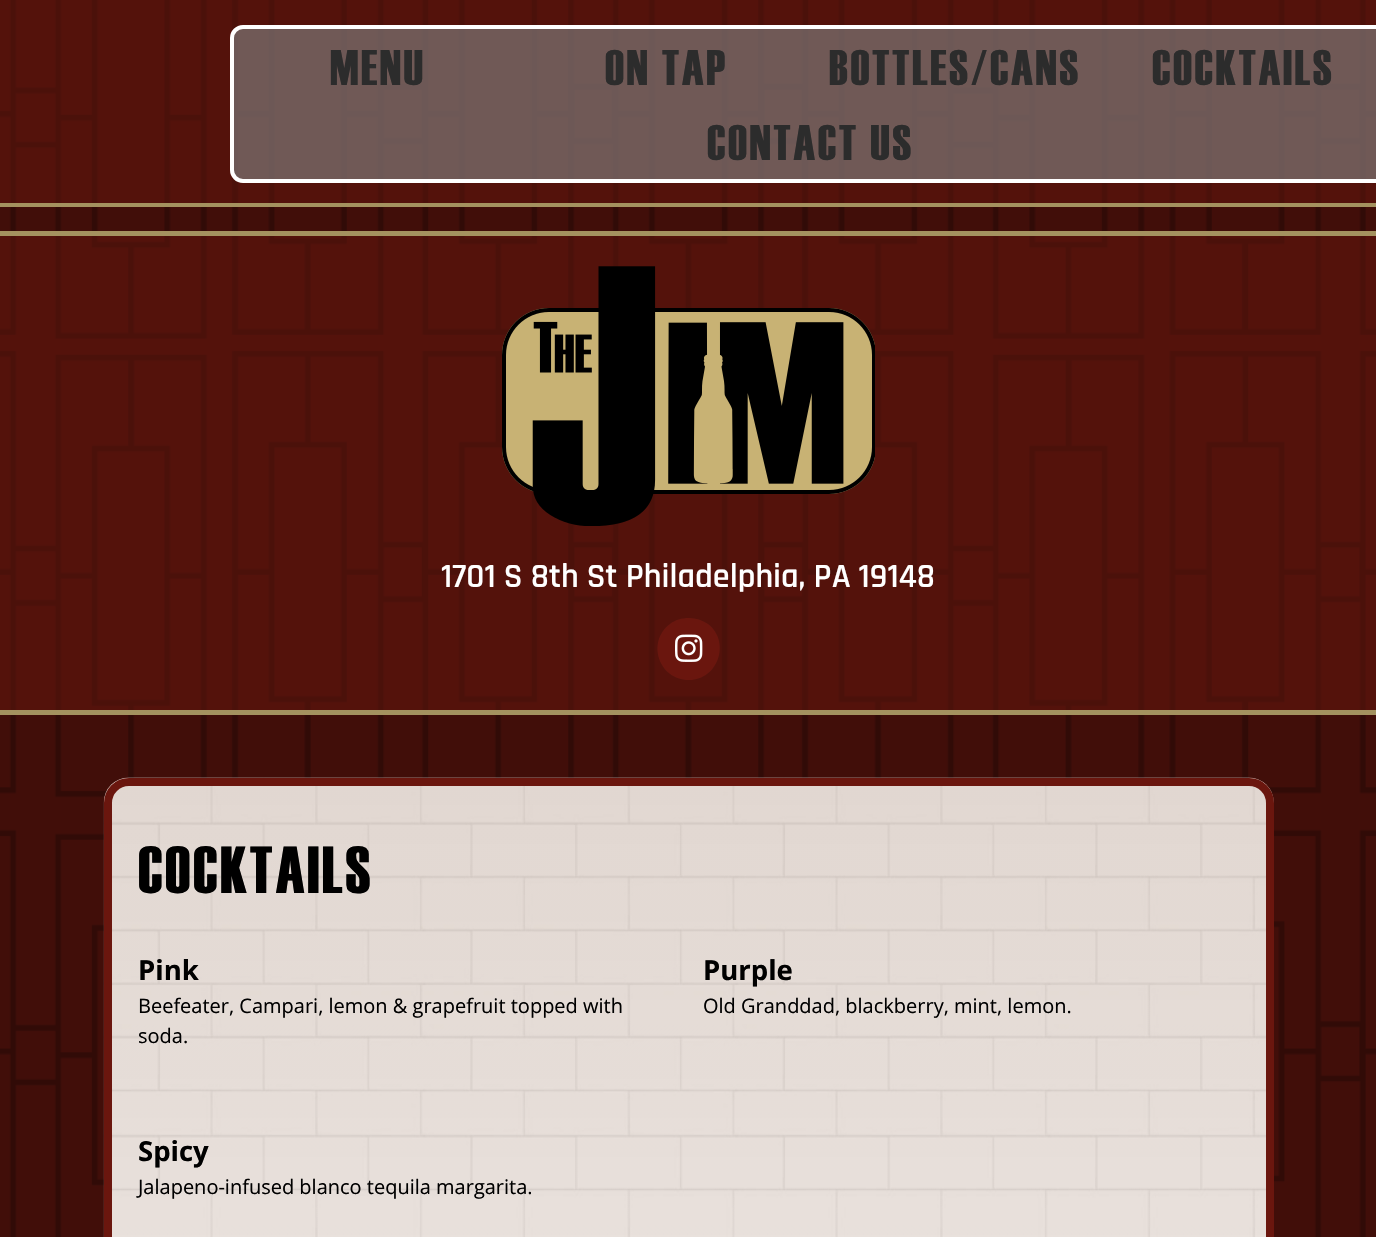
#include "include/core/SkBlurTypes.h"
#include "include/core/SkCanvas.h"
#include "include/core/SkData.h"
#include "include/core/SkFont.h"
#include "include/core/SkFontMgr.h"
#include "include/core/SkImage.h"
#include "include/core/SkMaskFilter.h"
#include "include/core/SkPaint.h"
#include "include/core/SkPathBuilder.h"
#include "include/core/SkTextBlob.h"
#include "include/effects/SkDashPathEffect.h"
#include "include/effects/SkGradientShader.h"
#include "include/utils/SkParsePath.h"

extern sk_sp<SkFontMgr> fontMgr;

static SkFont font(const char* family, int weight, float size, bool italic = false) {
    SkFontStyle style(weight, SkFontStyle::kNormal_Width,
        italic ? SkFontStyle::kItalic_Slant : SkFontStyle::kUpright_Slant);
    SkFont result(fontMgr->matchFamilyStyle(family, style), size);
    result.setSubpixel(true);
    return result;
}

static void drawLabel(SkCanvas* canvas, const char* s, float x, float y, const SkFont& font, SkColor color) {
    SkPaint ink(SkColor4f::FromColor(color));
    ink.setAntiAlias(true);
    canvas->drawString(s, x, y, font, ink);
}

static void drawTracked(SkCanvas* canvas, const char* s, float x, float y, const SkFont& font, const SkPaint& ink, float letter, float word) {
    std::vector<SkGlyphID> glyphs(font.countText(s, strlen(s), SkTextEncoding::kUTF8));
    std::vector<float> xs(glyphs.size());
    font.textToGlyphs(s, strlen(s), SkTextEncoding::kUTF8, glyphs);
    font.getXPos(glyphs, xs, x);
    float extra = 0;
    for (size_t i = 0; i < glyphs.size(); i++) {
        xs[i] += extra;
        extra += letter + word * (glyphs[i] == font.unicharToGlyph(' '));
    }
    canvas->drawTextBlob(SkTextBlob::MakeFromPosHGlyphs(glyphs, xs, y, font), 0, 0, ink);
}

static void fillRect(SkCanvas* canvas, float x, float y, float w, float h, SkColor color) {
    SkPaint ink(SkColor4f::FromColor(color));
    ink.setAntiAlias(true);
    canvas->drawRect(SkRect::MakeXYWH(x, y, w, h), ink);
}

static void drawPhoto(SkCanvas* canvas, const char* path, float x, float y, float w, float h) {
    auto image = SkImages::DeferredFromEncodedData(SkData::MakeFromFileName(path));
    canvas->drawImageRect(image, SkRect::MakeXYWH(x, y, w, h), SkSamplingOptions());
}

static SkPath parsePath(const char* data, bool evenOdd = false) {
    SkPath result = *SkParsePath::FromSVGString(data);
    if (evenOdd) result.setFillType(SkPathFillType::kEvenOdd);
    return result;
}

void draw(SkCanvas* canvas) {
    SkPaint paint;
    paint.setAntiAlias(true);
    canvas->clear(0xFF410E09);
    drawPhoto(canvas, "assets/img1.png", 0, 0, 1376, 1237);
    fillRect(canvas, 0, 0, 1376, 203, 0x736A160E);
    fillRect(canvas, 0, 203, 1376, 4, 0xFFA4925F);
    paint.setColor(0xA67E7E7E);
    canvas->drawRoundRect(SkRect::MakeXYWH(232, 27, 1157, 154), 11, 11, paint);
    paint.setStroke(true);
    paint.setStrokeWidth(4);
    paint.setColor(0xFFFFFFFF);
    canvas->drawRoundRect(SkRect::MakeXYWH(232, 27, 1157, 154), 11, 11, paint);
    SkFont font1 = font("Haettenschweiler", 500, 50);
    paint.setStroke(false);
    paint.setColor(0xFF2C2C2C);
    drawTracked(canvas, "MENU", 330, 85, font1, paint, 2.5f, 0);
    drawTracked(canvas, "ON TAP", 605, 85, font1, paint, 2.5f, 0);
    drawTracked(canvas, "BOTTLES/CANS", 829, 85, font1, paint, 2.5f, 0);
    drawTracked(canvas, "COCKTAILS", 1152, 85, font1, paint, 2.5f, 0);
    drawTracked(canvas, "CONTACT US", 707, 160, font1, paint, 2.5f, 0);
    fillRect(canvas, 0, 236, 1376, 474, 0x736A160E);
    fillRect(canvas, 0, 231, 1376, 5, 0xFFA4925F);
    fillRect(canvas, 0, 710, 1376, 5, 0xFFA4925F);
    drawPhoto(canvas, "assets/img2.png", 502, 266, 373, 260);
    SkFont font2 = font("Rajdhani", 600, 34.25f);
    drawLabel(canvas, "1701 S 8th St Philadelphia, PA 19148", 441, 587, font2, 0xFFFFFFFF);
    paint.setColor(0xFF6A160E);
    canvas->drawPath(parsePath("M689 680C718 680 731 642 708 624C702 620 696 618 689 618C682 618 675 620 670 624C646 642 659 680 689 680Z"), paint);
    drawPhoto(canvas, "assets/img3.png", 675, 634, 28, 28);
    drawPhoto(canvas, "assets/img4.png", 103, 777, 1171, 460);
    paint.setStroke(true);
    paint.setStrokeWidth(8);
    canvas->drawRoundRect(SkRect::MakeXYWH(108, 782, 1162, 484), 21, 21, paint);
    SkFont font3 = font("Haettenschweiler", 500, 66.5f);
    paint.setStroke(false);
    paint.setColor(0xFF000000);
    drawTracked(canvas, "COCKTAILS", 138, 893, font3, paint, 2.5f, 0);
    SkFont font4 = font("Open Sans", 700, 27.5f);
    drawLabel(canvas, "Pink", 138, 980, font4, 0xFF000000);
    SkFont font5 = font("Open Sans", 400, 20);
    drawLabel(canvas, "Beefeater, Campari, lemon & grapefruit topped with", 138, 1013, font5, 0xFF000000);
    drawLabel(canvas, "soda.", 138, 1043, font5, 0xFF000000);
    drawLabel(canvas, "Purple", 703, 980, font4, 0xFF000000);
    drawLabel(canvas, "Old Granddad, blackberry, mint, lemon.", 703, 1013, font5, 0xFF000000);
    drawLabel(canvas, "Spicy", 138, 1161, font4, 0xFF000000);
    drawLabel(canvas, "Jalapeno-infused blanco tequila margarita.", 138, 1194, font5, 0xFF000000);
}
